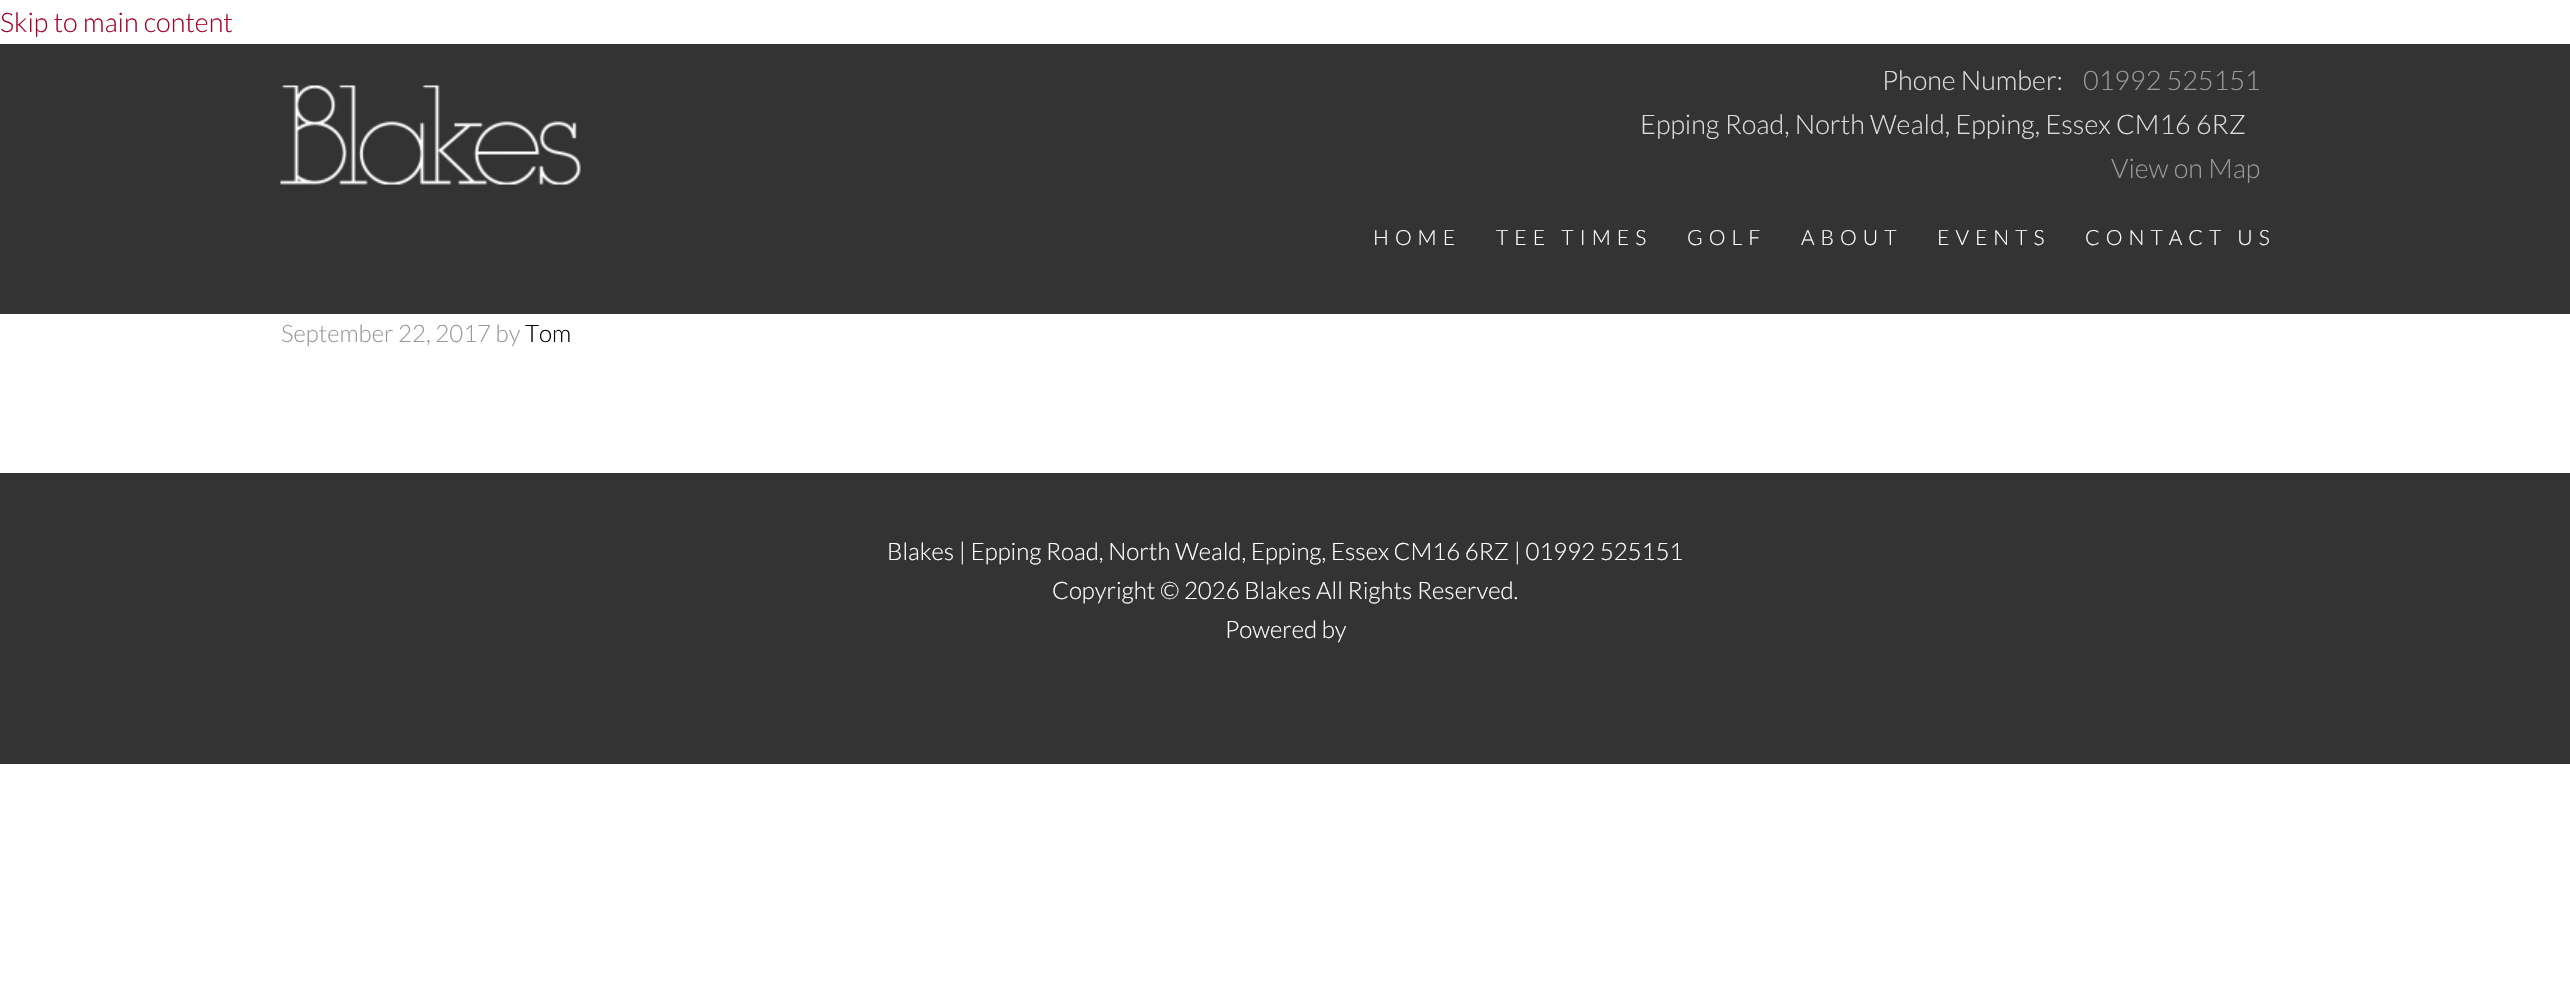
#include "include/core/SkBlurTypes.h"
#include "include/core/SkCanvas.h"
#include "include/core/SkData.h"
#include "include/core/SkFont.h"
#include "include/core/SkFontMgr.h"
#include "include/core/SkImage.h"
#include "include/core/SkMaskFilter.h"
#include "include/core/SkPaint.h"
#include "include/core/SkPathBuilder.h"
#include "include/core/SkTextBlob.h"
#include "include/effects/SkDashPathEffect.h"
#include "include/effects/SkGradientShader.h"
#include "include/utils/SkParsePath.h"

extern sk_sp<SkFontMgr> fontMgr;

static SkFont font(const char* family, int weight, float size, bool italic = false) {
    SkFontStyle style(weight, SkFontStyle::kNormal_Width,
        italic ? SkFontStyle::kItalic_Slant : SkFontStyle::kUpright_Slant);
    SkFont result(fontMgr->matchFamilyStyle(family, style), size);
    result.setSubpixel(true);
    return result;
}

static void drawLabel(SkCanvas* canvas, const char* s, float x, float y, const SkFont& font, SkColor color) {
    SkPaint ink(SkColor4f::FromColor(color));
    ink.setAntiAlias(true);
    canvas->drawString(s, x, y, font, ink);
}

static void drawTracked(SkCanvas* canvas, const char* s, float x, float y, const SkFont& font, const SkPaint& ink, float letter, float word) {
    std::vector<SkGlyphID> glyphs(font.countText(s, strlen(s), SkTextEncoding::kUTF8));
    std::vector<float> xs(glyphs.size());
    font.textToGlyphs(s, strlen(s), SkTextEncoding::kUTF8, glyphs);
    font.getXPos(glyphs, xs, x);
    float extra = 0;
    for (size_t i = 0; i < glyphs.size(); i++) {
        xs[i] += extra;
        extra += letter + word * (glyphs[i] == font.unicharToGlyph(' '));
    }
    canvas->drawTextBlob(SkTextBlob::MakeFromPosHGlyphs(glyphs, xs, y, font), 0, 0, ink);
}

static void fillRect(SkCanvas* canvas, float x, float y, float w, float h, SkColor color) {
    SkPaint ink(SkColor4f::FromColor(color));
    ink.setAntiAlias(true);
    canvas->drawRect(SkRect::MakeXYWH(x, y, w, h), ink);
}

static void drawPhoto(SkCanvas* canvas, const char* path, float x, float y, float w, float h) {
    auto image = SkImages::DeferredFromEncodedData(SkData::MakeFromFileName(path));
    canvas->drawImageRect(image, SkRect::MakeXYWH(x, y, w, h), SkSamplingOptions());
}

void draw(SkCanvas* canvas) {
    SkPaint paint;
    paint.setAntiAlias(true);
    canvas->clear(0xFFFFFFFF);
    SkFont font1 = font("Lato", 300, 27);
    drawLabel(canvas, "Skip to main content", 0, 32, font1, 0xFFA7002A);
    fillRect(canvas, 0, 44, 2570, 270, 0xFF333333);
    drawPhoto(canvas, "assets/img1.png", 280, 85, 301, 100);
    drawLabel(canvas, "Phone Number:", 1882, 90, font1, 0xFFDCDCDC);
    drawLabel(canvas, "01992 525151", 2083, 90, font1, 0xFF999999);
    drawLabel(canvas, "Epping Road, North Weald, Epping, Essex CM16 6RZ", 1640, 134, font1, 0xFFDCDCDC);
    drawLabel(canvas, "View on Map", 2111, 178, font1, 0xFF999999);
    SkFont font2 = font("Lato", 300, 21);
    paint.setColor(0xFFFFFFFF);
    drawTracked(canvas, "HOME", 1373, 245, font2, paint, 6, 0);
    drawTracked(canvas, "TEE TIMES", 1496, 245, font2, paint, 6, 0);
    drawTracked(canvas, "GOLF", 1687, 245, font2, paint, 6, 0);
    drawTracked(canvas, "ABOUT", 1801, 245, font2, paint, 6, 0);
    drawTracked(canvas, "EVENTS", 1937, 245, font2, paint, 6, 0);
    drawTracked(canvas, "CONTACT US", 2085, 245, font2, paint, 6, 0);
    SkFont font3 = font("Lato", 300, 24);
    drawLabel(canvas, "September 22, 2017 by", 281, 342, font3, 0xFF999999);
    drawLabel(canvas, "Tom", 525, 342, font3, 0xFF000000);
    fillRect(canvas, 0, 473, 2570, 291, 0xFF333333);
    drawLabel(canvas, "Blakes | Epping Road, North Weald, Epping, Essex CM16 6RZ | 01992 525151", 887, 560, font3, 0xFFFFFFFF);
    drawLabel(canvas, "Copyright © 2026 Blakes All Rights Reserved.", 1052, 599, font3, 0xFFFFFFFF);
    drawLabel(canvas, "Powered by", 1225, 638, font3, 0xFFFFFFFF);
}
